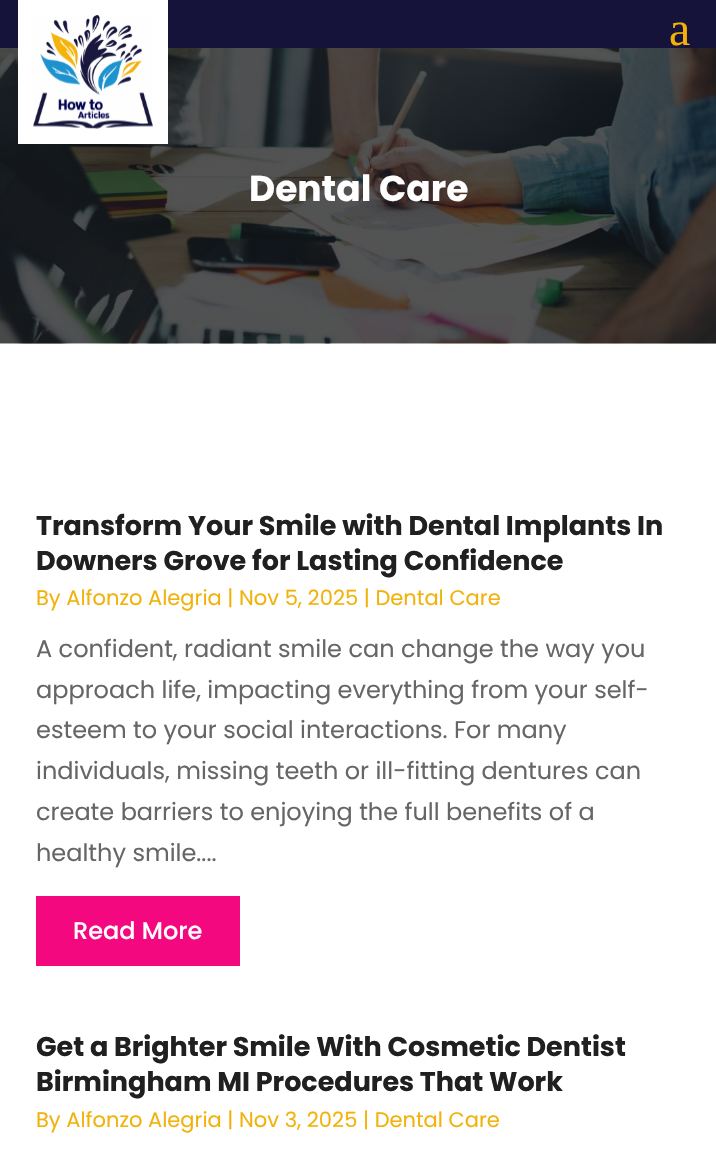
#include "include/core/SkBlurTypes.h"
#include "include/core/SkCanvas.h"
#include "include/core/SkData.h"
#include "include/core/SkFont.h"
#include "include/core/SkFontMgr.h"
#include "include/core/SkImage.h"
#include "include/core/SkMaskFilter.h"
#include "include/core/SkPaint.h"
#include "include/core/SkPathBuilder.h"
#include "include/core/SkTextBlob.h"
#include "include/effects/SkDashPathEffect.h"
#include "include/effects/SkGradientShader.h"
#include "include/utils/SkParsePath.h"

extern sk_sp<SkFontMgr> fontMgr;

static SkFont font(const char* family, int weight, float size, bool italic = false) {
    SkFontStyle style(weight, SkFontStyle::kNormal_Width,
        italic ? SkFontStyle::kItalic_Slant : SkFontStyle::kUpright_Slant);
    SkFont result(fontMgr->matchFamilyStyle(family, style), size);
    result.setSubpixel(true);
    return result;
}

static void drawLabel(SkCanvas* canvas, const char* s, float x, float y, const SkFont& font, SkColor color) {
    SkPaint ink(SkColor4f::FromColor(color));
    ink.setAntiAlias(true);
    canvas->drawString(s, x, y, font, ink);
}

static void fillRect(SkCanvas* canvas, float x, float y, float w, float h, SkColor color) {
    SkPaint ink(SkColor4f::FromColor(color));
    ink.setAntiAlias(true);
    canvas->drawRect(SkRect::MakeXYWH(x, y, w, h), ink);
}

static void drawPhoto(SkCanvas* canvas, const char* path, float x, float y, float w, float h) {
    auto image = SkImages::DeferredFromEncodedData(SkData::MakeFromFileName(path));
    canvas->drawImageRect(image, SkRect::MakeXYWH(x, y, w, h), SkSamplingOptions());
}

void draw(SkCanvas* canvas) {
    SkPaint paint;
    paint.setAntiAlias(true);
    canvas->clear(0xFFFFFFFF);
    fillRect(canvas, 0, 0, 716, 48, 0xFF15133A);
    fillRect(canvas, 0, 343, 716, 1, 0xFFE6EEE0);
    drawPhoto(canvas, "assets/img2.png", 0, 48, 716, 296);
    fillRect(canvas, 18, 0, 150, 144, 0xFFFFFFFF);
    drawPhoto(canvas, "assets/img1.png", 33, 15, 120, 114);
    SkFont font1 = font("Liberation Serif", 400, 48);
    drawLabel(canvas, "a", 669, 45, font1, 0xFFF2B20A);
    SkFont font2 = font("Poppins", 700, 36);
    drawLabel(canvas, "Dental Care", 249, 201, font2, 0xFFFFFFFF);
    SkFont font3 = font("Poppins", 700, 27);
    drawLabel(canvas, "Transform Your Smile with Dental Implants In", 36, 535, font3, 0xFF202020);
    drawLabel(canvas, "Downers Grove for Lasting Confidence", 36, 570, font3, 0xFF202020);
    SkFont font4 = font("Poppins", 400, 21);
    drawLabel(canvas, "By Alfonzo Alegria | Nov 5, 2025 | Dental Care", 36, 605, font4, 0xFFF2B20A);
    SkFont font5 = font("Poppins", 400, 24);
    drawLabel(canvas, "A confident, radiant smile can change the way you", 36, 657, font5, 0xFF666666);
    drawLabel(canvas, "approach life, impacting everything from your self-", 36, 698, font5, 0xFF666666);
    drawLabel(canvas, "esteem to your social interactions. For many", 36, 738, font5, 0xFF666666);
    drawLabel(canvas, "individuals, missing teeth or ill-fitting dentures can", 36, 779, font5, 0xFF666666);
    drawLabel(canvas, "create barriers to enjoying the full benefits of a", 36, 820, font5, 0xFF666666);
    drawLabel(canvas, "healthy smile....", 36, 861, font5, 0xFF666666);
    fillRect(canvas, 36, 896, 204, 70, 0xFFF4087F);
    SkFont font6 = font("Poppins", 500, 24);
    drawLabel(canvas, "Read More", 73, 939, font6, 0xFFFFFFFF);
    drawLabel(canvas, "Get a Brighter Smile With Cosmetic Dentist", 36, 1056, font3, 0xFF202020);
    drawLabel(canvas, "Birmingham MI Procedures That Work", 36, 1091, font3, 0xFF202020);
    drawLabel(canvas, "By Alfonzo Alegria | Nov 3, 2025 | Dental Care", 36, 1127, font4, 0xFFF2B20A);
}
